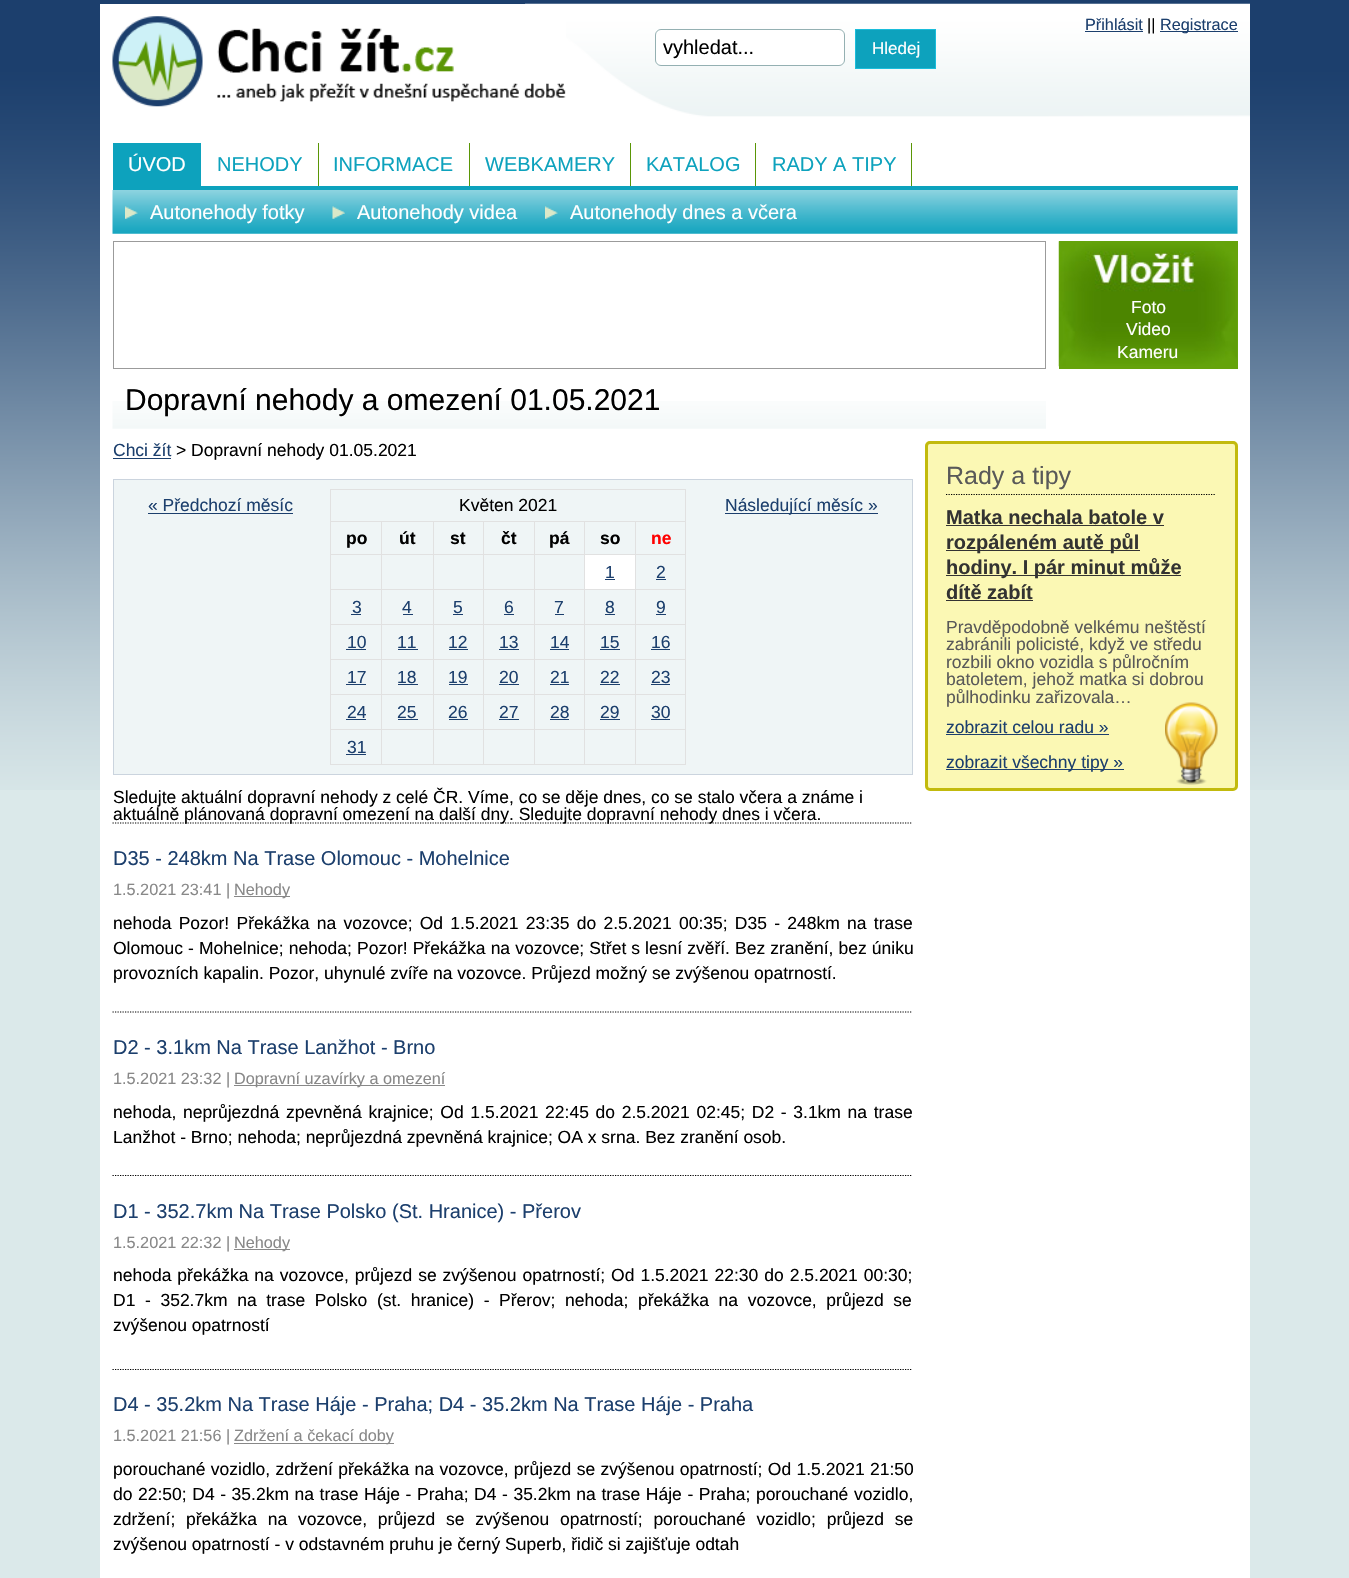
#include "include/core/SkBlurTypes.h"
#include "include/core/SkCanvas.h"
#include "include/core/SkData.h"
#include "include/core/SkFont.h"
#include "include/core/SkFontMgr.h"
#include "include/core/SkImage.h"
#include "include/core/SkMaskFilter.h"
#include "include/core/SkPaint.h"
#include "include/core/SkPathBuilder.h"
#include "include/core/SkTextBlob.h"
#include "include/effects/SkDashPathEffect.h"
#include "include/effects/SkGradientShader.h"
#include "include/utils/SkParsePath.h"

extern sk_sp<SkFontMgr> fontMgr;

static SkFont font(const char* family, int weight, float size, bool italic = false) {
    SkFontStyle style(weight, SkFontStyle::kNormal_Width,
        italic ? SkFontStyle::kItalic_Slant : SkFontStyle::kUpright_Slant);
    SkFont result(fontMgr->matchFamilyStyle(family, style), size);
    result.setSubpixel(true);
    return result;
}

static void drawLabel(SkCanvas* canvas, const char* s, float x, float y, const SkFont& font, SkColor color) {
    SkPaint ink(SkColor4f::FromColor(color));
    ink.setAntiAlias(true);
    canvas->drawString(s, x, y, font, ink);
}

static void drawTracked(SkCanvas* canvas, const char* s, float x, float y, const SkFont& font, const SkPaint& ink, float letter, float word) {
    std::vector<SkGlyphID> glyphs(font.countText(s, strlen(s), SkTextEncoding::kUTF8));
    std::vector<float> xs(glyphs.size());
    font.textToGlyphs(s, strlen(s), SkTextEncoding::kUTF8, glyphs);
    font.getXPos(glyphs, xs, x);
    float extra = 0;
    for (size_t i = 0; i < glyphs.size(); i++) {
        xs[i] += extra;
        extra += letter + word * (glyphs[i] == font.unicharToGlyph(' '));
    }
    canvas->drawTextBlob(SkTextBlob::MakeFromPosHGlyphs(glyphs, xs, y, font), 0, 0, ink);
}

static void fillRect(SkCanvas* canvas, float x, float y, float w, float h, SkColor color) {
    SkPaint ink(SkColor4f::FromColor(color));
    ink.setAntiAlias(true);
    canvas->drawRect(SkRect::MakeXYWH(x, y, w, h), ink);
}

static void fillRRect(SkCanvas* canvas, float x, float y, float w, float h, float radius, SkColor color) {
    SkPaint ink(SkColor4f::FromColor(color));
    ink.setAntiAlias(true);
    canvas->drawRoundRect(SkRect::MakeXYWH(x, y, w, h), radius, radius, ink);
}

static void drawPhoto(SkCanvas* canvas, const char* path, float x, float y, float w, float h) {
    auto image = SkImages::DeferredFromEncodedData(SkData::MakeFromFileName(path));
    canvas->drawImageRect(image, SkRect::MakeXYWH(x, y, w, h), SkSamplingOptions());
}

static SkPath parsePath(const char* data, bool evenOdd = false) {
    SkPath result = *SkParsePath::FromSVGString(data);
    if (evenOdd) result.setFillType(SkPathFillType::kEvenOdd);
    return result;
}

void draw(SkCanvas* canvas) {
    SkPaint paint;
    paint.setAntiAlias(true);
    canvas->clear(0xFFDBE9EA);
    drawPhoto(canvas, "assets/img1.png", 0, 0, 1349, 790);
    fillRect(canvas, 100, 4, 1150, 1574, 0xFFFFFFFF);
    drawPhoto(canvas, "assets/img2.png", 525, 3, 725, 114);
    drawPhoto(canvas, "assets/img3.png", 112, 16, 454, 91);
    SkFont font1 = font("Liberation Sans", 400, 16.25f);
    drawLabel(canvas, "Přihlásit", 1085, 30, font1, 0xFF1C3F6D);
    fillRect(canvas, 1085, 31, 58, 1, 0xFF1C3F6D);
    drawLabel(canvas, "||", 1147, 30, font1, 0xFF000000);
    fillRect(canvas, 1160, 31, 78, 1, 0xFF1C3F6D);
    drawLabel(canvas, "Registrace", 1160, 30, font1, 0xFF1C3F6D);
    paint.setColor(0xFFFFFFFF);
    canvas->drawRoundRect(SkRect::MakeXYWH(655.5f, 29.5f, 189, 36), 5.5f, 5.5f, paint);
    paint.setStroke(true);
    paint.setStrokeWidth(1);
    paint.setColor(0xFF94B0B2);
    canvas->drawRoundRect(SkRect::MakeXYWH(655.5f, 29.5f, 189, 36), 5.5f, 5.5f, paint);
    SkFont font2 = font("Liberation Sans", 400, 20);
    drawLabel(canvas, "vyhledat...", 663, 54, font2, 0xFF000000);
    paint.setStroke(false);
    paint.setColor(0xFF0DA2BD);
    canvas->drawRect(SkRect::MakeXYWH(855.5f, 29.5f, 80, 39), paint);
    paint.setStroke(true);
    paint.setColor(0xFF1ABDDB);
    canvas->drawRect(SkRect::MakeXYWH(855.5f, 29.5f, 80, 39), paint);
    SkFont font3 = font("Liberation Sans", 400, 17);
    drawLabel(canvas, "Hledej", 872, 54, font3, 0xFFFFFFFF);
    fillRect(canvas, 113, 143, 88, 43, 0xFF0DA2BD);
    drawLabel(canvas, "ÚVOD", 128, 171, font2, 0xFFFFFFFF);
    drawPhoto(canvas, "assets/img4.png", 112, 190, 1126, 44);
    fillRect(canvas, 113, 186, 1125, 4, 0xFF0DA2BD);
    drawPhoto(canvas, "assets/img5.png", 125, 206, 13, 13);
    drawLabel(canvas, "Autonehody fotky", 150, 219, font2, 0xFFFFFFFF);
    drawPhoto(canvas, "assets/img6.png", 332, 206, 13, 13);
    drawLabel(canvas, "Autonehody videa", 357, 219, font2, 0xFFFFFFFF);
    drawPhoto(canvas, "assets/img7.png", 545, 206, 13, 13);
    drawLabel(canvas, "Autonehody dnes a včera", 570, 219, font2, 0xFFFFFFFF);
    fillRect(canvas, 318, 143, 1, 43, 0xFF5A9606);
    drawLabel(canvas, "NEHODY", 217, 171, font2, 0xFF0DA2BD);
    fillRect(canvas, 469, 143, 1, 43, 0xFF5A9606);
    drawLabel(canvas, "INFORMACE", 333, 171, font2, 0xFF0DA2BD);
    fillRect(canvas, 630, 143, 1, 43, 0xFF5A9606);
    drawLabel(canvas, "WEBKAMERY", 485, 171, font2, 0xFF0DA2BD);
    fillRect(canvas, 755, 143, 1, 43, 0xFF5A9606);
    drawLabel(canvas, "KATALOG", 646, 171, font2, 0xFF0DA2BD);
    fillRect(canvas, 911, 143, 1, 43, 0xFF5A9606);
    drawLabel(canvas, "RADY A TIPY", 772, 171, font2, 0xFF0DA2BD);
    paint.setColor(0xFF9B9B9B);
    canvas->drawRect(SkRect::MakeXYWH(113.5f, 241.5f, 932, 127), paint);
    fillRect(canvas, 1059, 241, 179, 128, 0xFF65A30B);
    drawPhoto(canvas, "assets/img8.png", 1058, 241, 179, 126);
    SkFont font4 = font("Liberation Sans", 400, 17.5f);
    drawLabel(canvas, "Foto", 1131, 313, font4, 0xFFFFFFFF);
    drawLabel(canvas, "Video", 1126, 335, font4, 0xFFFFFFFF);
    drawLabel(canvas, "Kameru", 1117, 358, font4, 0xFFFFFFFF);
    drawLabel(canvas, "Chci žít", 113, 456, font4, 0xFF1C3F6D);
    fillRect(canvas, 113, 458, 58, 1, 0xFF1C3F6D);
    drawLabel(canvas, "> Dopravní nehody 01.05.2021", 176, 456, font4, 0xFF000000);
    drawPhoto(canvas, "assets/img9.png", 112, 401, 934, 28);
    SkFont font5 = font("Liberation Sans", 400, 30);
    drawLabel(canvas, "Dopravní nehody a omezení 01.05.2021", 125, 410, font5, 0xFF000000);
    paint.setStroke(false);
    paint.setColor(0xFFEFF5F6);
    canvas->drawRect(SkRect::MakeXYWH(113.5f, 479.5f, 799, 295), paint);
    paint.setStroke(true);
    paint.setColor(0xFFCBD4DE);
    canvas->drawRect(SkRect::MakeXYWH(113.5f, 479.5f, 799, 295), paint);
    drawLabel(canvas, "« Předchozí měsíc", 148, 511, font4, 0xFF1C3F6D);
    fillRect(canvas, 148, 513, 145, 1, 0xFF1C3F6D);
    fillRect(canvas, 330, 489, 356, 1, 0xFFE1E1E1);
    fillRect(canvas, 635, 521, 51, 1, 0xFFE1E1E1);
    fillRect(canvas, 635, 554, 51, 1, 0xFFE1E1E1);
    fillRect(canvas, 635, 589, 51, 1, 0xFFE1E1E1);
    fillRect(canvas, 635, 624, 51, 1, 0xFFE1E1E1);
    fillRect(canvas, 635, 659, 51, 1, 0xFFE1E1E1);
    fillRect(canvas, 635, 694, 51, 1, 0xFFE1E1E1);
    fillRect(canvas, 635, 729, 51, 1, 0xFFE1E1E1);
    fillRect(canvas, 685, 729, 1, 36, 0xFFE1E1E1);
    fillRect(canvas, 685, 694, 1, 36, 0xFFE1E1E1);
    fillRect(canvas, 685, 659, 1, 36, 0xFFE1E1E1);
    fillRect(canvas, 685, 624, 1, 36, 0xFFE1E1E1);
    fillRect(canvas, 685, 589, 1, 36, 0xFFE1E1E1);
    fillRect(canvas, 685, 554, 1, 36, 0xFFE1E1E1);
    fillRect(canvas, 685, 521, 1, 34, 0xFFE1E1E1);
    fillRect(canvas, 685, 489, 1, 34, 0xFFE1E1E1);
    fillRect(canvas, 635, 764, 51, 1, 0xFFE1E1E1);
    fillRect(canvas, 635, 729, 1, 36, 0xFFE1E1E1);
    fillRect(canvas, 584, 729, 52, 1, 0xFFE1E1E1);
    fillRect(canvas, 635, 694, 1, 36, 0xFFE1E1E1);
    fillRect(canvas, 584, 694, 52, 1, 0xFFE1E1E1);
    fillRect(canvas, 635, 659, 1, 36, 0xFFE1E1E1);
    fillRect(canvas, 584, 659, 52, 1, 0xFFE1E1E1);
    fillRect(canvas, 635, 624, 1, 36, 0xFFE1E1E1);
    fillRect(canvas, 584, 624, 52, 1, 0xFFE1E1E1);
    fillRect(canvas, 635, 589, 1, 36, 0xFFE1E1E1);
    fillRect(canvas, 584, 589, 52, 1, 0xFFE1E1E1);
    fillRect(canvas, 635, 554, 1, 36, 0xFFE1E1E1);
    fillRect(canvas, 584, 554, 52, 1, 0xFFE1E1E1);
    fillRect(canvas, 635, 521, 1, 34, 0xFFE1E1E1);
    fillRect(canvas, 584, 521, 52, 1, 0xFFE1E1E1);
    fillRect(canvas, 584, 764, 52, 1, 0xFFE1E1E1);
    fillRect(canvas, 584, 729, 1, 36, 0xFFE1E1E1);
    fillRect(canvas, 534, 729, 51, 1, 0xFFE1E1E1);
    fillRect(canvas, 584, 694, 1, 36, 0xFFE1E1E1);
    fillRect(canvas, 534, 694, 51, 1, 0xFFE1E1E1);
    fillRect(canvas, 584, 659, 1, 36, 0xFFE1E1E1);
    fillRect(canvas, 534, 659, 51, 1, 0xFFE1E1E1);
    fillRect(canvas, 584, 624, 1, 36, 0xFFE1E1E1);
    fillRect(canvas, 534, 624, 51, 1, 0xFFE1E1E1);
    fillRect(canvas, 584, 589, 1, 36, 0xFFE1E1E1);
    fillRect(canvas, 534, 589, 51, 1, 0xFFE1E1E1);
    fillRect(canvas, 584, 554, 1, 36, 0xFFE1E1E1);
    fillRect(canvas, 534, 554, 51, 1, 0xFFE1E1E1);
    fillRect(canvas, 584, 521, 1, 34, 0xFFE1E1E1);
    fillRect(canvas, 534, 521, 51, 1, 0xFFE1E1E1);
    fillRect(canvas, 534, 764, 51, 1, 0xFFE1E1E1);
    fillRect(canvas, 534, 729, 1, 36, 0xFFE1E1E1);
    fillRect(canvas, 483, 729, 52, 1, 0xFFE1E1E1);
    fillRect(canvas, 534, 694, 1, 36, 0xFFE1E1E1);
    fillRect(canvas, 483, 694, 52, 1, 0xFFE1E1E1);
    fillRect(canvas, 534, 659, 1, 36, 0xFFE1E1E1);
    fillRect(canvas, 483, 659, 52, 1, 0xFFE1E1E1);
    fillRect(canvas, 534, 624, 1, 36, 0xFFE1E1E1);
    fillRect(canvas, 483, 624, 52, 1, 0xFFE1E1E1);
    fillRect(canvas, 534, 589, 1, 36, 0xFFE1E1E1);
    fillRect(canvas, 483, 589, 52, 1, 0xFFE1E1E1);
    fillRect(canvas, 534, 554, 1, 36, 0xFFE1E1E1);
    fillRect(canvas, 483, 554, 52, 1, 0xFFE1E1E1);
    fillRect(canvas, 534, 521, 1, 34, 0xFFE1E1E1);
    fillRect(canvas, 483, 521, 52, 1, 0xFFE1E1E1);
    fillRect(canvas, 483, 764, 52, 1, 0xFFE1E1E1);
    fillRect(canvas, 483, 729, 1, 36, 0xFFE1E1E1);
    fillRect(canvas, 433, 729, 51, 1, 0xFFE1E1E1);
    fillRect(canvas, 483, 694, 1, 36, 0xFFE1E1E1);
    fillRect(canvas, 433, 694, 51, 1, 0xFFE1E1E1);
    fillRect(canvas, 483, 659, 1, 36, 0xFFE1E1E1);
    fillRect(canvas, 433, 659, 51, 1, 0xFFE1E1E1);
    fillRect(canvas, 483, 624, 1, 36, 0xFFE1E1E1);
    fillRect(canvas, 433, 624, 51, 1, 0xFFE1E1E1);
    fillRect(canvas, 483, 589, 1, 36, 0xFFE1E1E1);
    fillRect(canvas, 433, 589, 51, 1, 0xFFE1E1E1);
    fillRect(canvas, 483, 554, 1, 36, 0xFFE1E1E1);
    fillRect(canvas, 433, 554, 51, 1, 0xFFE1E1E1);
    fillRect(canvas, 483, 521, 1, 34, 0xFFE1E1E1);
    fillRect(canvas, 433, 521, 51, 1, 0xFFE1E1E1);
    fillRect(canvas, 433, 764, 51, 1, 0xFFE1E1E1);
    fillRect(canvas, 433, 729, 1, 36, 0xFFE1E1E1);
    fillRect(canvas, 381, 729, 53, 1, 0xFFE1E1E1);
    fillRect(canvas, 433, 694, 1, 36, 0xFFE1E1E1);
    fillRect(canvas, 381, 694, 53, 1, 0xFFE1E1E1);
    fillRect(canvas, 433, 659, 1, 36, 0xFFE1E1E1);
    fillRect(canvas, 381, 659, 53, 1, 0xFFE1E1E1);
    fillRect(canvas, 433, 624, 1, 36, 0xFFE1E1E1);
    fillRect(canvas, 381, 624, 53, 1, 0xFFE1E1E1);
    fillRect(canvas, 433, 589, 1, 36, 0xFFE1E1E1);
    fillRect(canvas, 381, 589, 53, 1, 0xFFE1E1E1);
    fillRect(canvas, 433, 554, 1, 36, 0xFFE1E1E1);
    fillRect(canvas, 381, 554, 53, 1, 0xFFE1E1E1);
    fillRect(canvas, 433, 521, 1, 34, 0xFFE1E1E1);
    fillRect(canvas, 381, 521, 53, 1, 0xFFE1E1E1);
    fillRect(canvas, 381, 764, 53, 1, 0xFFE1E1E1);
    fillRect(canvas, 381, 729, 1, 36, 0xFFE1E1E1);
    fillRect(canvas, 330, 729, 53, 1, 0xFFE1E1E1);
    fillRect(canvas, 381, 694, 1, 36, 0xFFE1E1E1);
    fillRect(canvas, 330, 694, 53, 1, 0xFFE1E1E1);
    fillRect(canvas, 381, 659, 1, 36, 0xFFE1E1E1);
    fillRect(canvas, 330, 659, 53, 1, 0xFFE1E1E1);
    fillRect(canvas, 381, 624, 1, 36, 0xFFE1E1E1);
    fillRect(canvas, 330, 624, 53, 1, 0xFFE1E1E1);
    fillRect(canvas, 381, 589, 1, 36, 0xFFE1E1E1);
    fillRect(canvas, 330, 589, 53, 1, 0xFFE1E1E1);
    fillRect(canvas, 381, 554, 1, 36, 0xFFE1E1E1);
    fillRect(canvas, 330, 554, 53, 1, 0xFFE1E1E1);
    fillRect(canvas, 381, 521, 1, 34, 0xFFE1E1E1);
    fillRect(canvas, 330, 521, 53, 1, 0xFFE1E1E1);
    fillRect(canvas, 330, 764, 53, 1, 0xFFE1E1E1);
    fillRect(canvas, 330, 729, 1, 36, 0xFFE1E1E1);
    fillRect(canvas, 330, 694, 1, 36, 0xFFE1E1E1);
    fillRect(canvas, 330, 659, 1, 36, 0xFFE1E1E1);
    fillRect(canvas, 330, 624, 1, 36, 0xFFE1E1E1);
    fillRect(canvas, 330, 589, 1, 36, 0xFFE1E1E1);
    fillRect(canvas, 330, 554, 1, 36, 0xFFE1E1E1);
    fillRect(canvas, 330, 521, 1, 34, 0xFFE1E1E1);
    fillRect(canvas, 330, 489, 1, 34, 0xFFE1E1E1);
    drawLabel(canvas, "Květen 2021", 459, 511, font4, 0xFF000000);
    SkFont font6 = font("Liberation Sans", 700, 17.5f);
    drawLabel(canvas, "po", 346, 544, font6, 0xFF000000);
    drawLabel(canvas, "út", 399, 544, font6, 0xFF000000);
    drawLabel(canvas, "st", 450, 544, font6, 0xFF000000);
    drawLabel(canvas, "čt", 501, 544, font6, 0xFF000000);
    drawLabel(canvas, "pá", 549, 544, font6, 0xFF000000);
    drawLabel(canvas, "so", 600, 544, font6, 0xFF000000);
    drawLabel(canvas, "ne", 651, 544, font6, 0xFFFF0000);
    fillRect(canvas, 585, 555, 50, 34, 0xFFFFFFFF);
    drawLabel(canvas, "1", 605, 578, font4, 0xFF1C3F6D);
    fillRect(canvas, 605, 579, 10, 1, 0xFF1C3F6D);
    drawLabel(canvas, "2", 656, 578, font4, 0xFF1C3F6D);
    fillRect(canvas, 656, 579, 10, 1, 0xFF1C3F6D);
    drawLabel(canvas, "3", 352, 613, font4, 0xFF1C3F6D);
    fillRect(canvas, 351, 614, 10, 1, 0xFF1C3F6D);
    drawLabel(canvas, "4", 402, 613, font4, 0xFF1C3F6D);
    fillRect(canvas, 403, 614, 10, 1, 0xFF1C3F6D);
    drawLabel(canvas, "5", 453, 613, font4, 0xFF1C3F6D);
    fillRect(canvas, 453, 614, 10, 1, 0xFF1C3F6D);
    drawLabel(canvas, "6", 504, 613, font4, 0xFF1C3F6D);
    fillRect(canvas, 504, 614, 10, 1, 0xFF1C3F6D);
    drawLabel(canvas, "7", 554, 613, font4, 0xFF1C3F6D);
    fillRect(canvas, 555, 614, 9, 1, 0xFF1C3F6D);
    drawLabel(canvas, "8", 605, 613, font4, 0xFF1C3F6D);
    fillRect(canvas, 605, 614, 10, 1, 0xFF1C3F6D);
    drawLabel(canvas, "9", 656, 613, font4, 0xFF1C3F6D);
    fillRect(canvas, 656, 614, 10, 1, 0xFF1C3F6D);
    drawLabel(canvas, "10", 347, 648, font4, 0xFF1C3F6D);
    fillRect(canvas, 346, 649, 20, 1, 0xFF1C3F6D);
    drawLabel(canvas, "11", 397, 648, font4, 0xFF1C3F6D);
    fillRect(canvas, 398, 649, 20, 1, 0xFF1C3F6D);
    drawLabel(canvas, "12", 448, 648, font4, 0xFF1C3F6D);
    fillRect(canvas, 449, 649, 19, 1, 0xFF1C3F6D);
    drawLabel(canvas, "13", 499, 648, font4, 0xFF1C3F6D);
    fillRect(canvas, 499, 649, 20, 1, 0xFF1C3F6D);
    drawLabel(canvas, "14", 550, 648, font4, 0xFF1C3F6D);
    fillRect(canvas, 550, 649, 19, 1, 0xFF1C3F6D);
    drawLabel(canvas, "15", 600, 648, font4, 0xFF1C3F6D);
    fillRect(canvas, 600, 649, 20, 1, 0xFF1C3F6D);
    drawLabel(canvas, "16", 651, 648, font4, 0xFF1C3F6D);
    fillRect(canvas, 651, 649, 19, 1, 0xFF1C3F6D);
    drawLabel(canvas, "17", 347, 683, font4, 0xFF1C3F6D);
    fillRect(canvas, 346, 684, 20, 1, 0xFF1C3F6D);
    drawLabel(canvas, "18", 397, 683, font4, 0xFF1C3F6D);
    fillRect(canvas, 398, 684, 20, 1, 0xFF1C3F6D);
    drawLabel(canvas, "19", 448, 683, font4, 0xFF1C3F6D);
    fillRect(canvas, 449, 684, 19, 1, 0xFF1C3F6D);
    drawLabel(canvas, "20", 499, 683, font4, 0xFF1C3F6D);
    fillRect(canvas, 499, 684, 20, 1, 0xFF1C3F6D);
    drawLabel(canvas, "21", 550, 683, font4, 0xFF1C3F6D);
    fillRect(canvas, 550, 684, 19, 1, 0xFF1C3F6D);
    drawLabel(canvas, "22", 600, 683, font4, 0xFF1C3F6D);
    fillRect(canvas, 600, 684, 20, 1, 0xFF1C3F6D);
    drawLabel(canvas, "23", 651, 683, font4, 0xFF1C3F6D);
    fillRect(canvas, 651, 684, 19, 1, 0xFF1C3F6D);
    drawLabel(canvas, "24", 347, 718, font4, 0xFF1C3F6D);
    fillRect(canvas, 346, 719, 20, 1, 0xFF1C3F6D);
    drawLabel(canvas, "25", 397, 718, font4, 0xFF1C3F6D);
    fillRect(canvas, 398, 719, 20, 1, 0xFF1C3F6D);
    drawLabel(canvas, "26", 448, 718, font4, 0xFF1C3F6D);
    fillRect(canvas, 449, 719, 19, 1, 0xFF1C3F6D);
    drawLabel(canvas, "27", 499, 718, font4, 0xFF1C3F6D);
    fillRect(canvas, 499, 719, 20, 1, 0xFF1C3F6D);
    drawLabel(canvas, "28", 550, 718, font4, 0xFF1C3F6D);
    fillRect(canvas, 550, 719, 19, 1, 0xFF1C3F6D);
    drawLabel(canvas, "29", 600, 718, font4, 0xFF1C3F6D);
    fillRect(canvas, 600, 719, 20, 1, 0xFF1C3F6D);
    drawLabel(canvas, "30", 651, 718, font4, 0xFF1C3F6D);
    fillRect(canvas, 651, 719, 19, 1, 0xFF1C3F6D);
    drawLabel(canvas, "31", 347, 753, font4, 0xFF1C3F6D);
    fillRect(canvas, 346, 754, 20, 1, 0xFF1C3F6D);
    fillRect(canvas, 725, 513, 153, 1, 0xFF1C3F6D);
    drawLabel(canvas, "Následující měsíc »", 725, 511, font4, 0xFF1C3F6D);
    drawLabel(canvas, "Sledujte aktuální dopravní nehody z celé ČR. Víme, co se děje dnes, co se stalo včera a známe i", 113, 803, font4, 0xFF000000);
    paint.setStrokeWidth(1.2f);
    paint.setColor(0xFF000000);
    paint.setPathEffect(SkDashPathEffect::Make({{1.25f, 1.25f}}, 0));
    canvas->drawPath(parsePath("M112.5 823H912.5"), paint);
    paint.setPathEffect(nullptr);
    drawLabel(canvas, "aktuálně plánovaná dopravní omezení na další dny. Sledujte dopravní nehody dnes i včera.", 113, 820, font4, 0xFF000000);
    drawLabel(canvas, "D35 - 248km Na Trase Olomouc - Mohelnice", 113, 865, font2, 0xFF1C3F6D);
    drawLabel(canvas, "1.5.2021 23:41 |", 113, 895, font1, 0xFF888888);
    fillRect(canvas, 234, 896, 56, 1, 0xFF888888);
    drawLabel(canvas, "Nehody", 234, 895, font1, 0xFF888888);
    paint.setStroke(false);
    drawTracked(canvas, "nehoda Pozor! Překážka na vozovce; Od 1.5.2021 23:35 do 2.5.2021 00:35; D35 - 248km na trase", 113, 929, font4, paint, 0, 2.4f);
    drawTracked(canvas, "Olomouc - Mohelnice; nehoda; Pozor! Překážka na vozovce; Střet s lesní zvěří. Bez zranění, bez úniku", 113, 954, font4, paint, 0, 0.2f);
    drawLabel(canvas, "provozních kapalin. Pozor, uhynulé zvíře na vozovce. Průjezd možný se zvýšenou opatrností.", 113, 979, font4, 0xFF000000);
    paint.setStroke(true);
    paint.setPathEffect(SkDashPathEffect::Make({{1.25f, 1.25f}}, 0));
    canvas->drawPath(parsePath("M112.5 1012H912.5"), paint);
    paint.setPathEffect(nullptr);
    drawLabel(canvas, "D2 - 3.1km Na Trase Lanžhot - Brno", 113, 1054, font2, 0xFF1C3F6D);
    drawLabel(canvas, "1.5.2021 23:32 |", 113, 1084, font1, 0xFF888888);
    fillRect(canvas, 234, 1085, 211, 1, 0xFF888888);
    drawLabel(canvas, "Dopravní uzavírky a omezení", 234, 1084, font1, 0xFF888888);
    paint.setStroke(false);
    drawTracked(canvas, "nehoda, neprůjezdná zpevněná krajnice; Od 1.5.2021 22:45 do 2.5.2021 02:45; D2 - 3.1km na trase", 113, 1118, font4, paint, 0, 1.8f);
    drawLabel(canvas, "Lanžhot - Brno; nehoda; neprůjezdná zpevněná krajnice; OA x srna. Bez zranění osob.", 113, 1143, font4, 0xFF000000);
    paint.setStroke(true);
    paint.setPathEffect(SkDashPathEffect::Make({{1.25f, 1.25f}}, 0));
    canvas->drawPath(parsePath("M112.5 1175.5H912.5"), paint);
    paint.setPathEffect(nullptr);
    drawLabel(canvas, "D1 - 352.7km Na Trase Polsko (St. Hranice) - Přerov", 113, 1218, font2, 0xFF1C3F6D);
    drawLabel(canvas, "1.5.2021 22:32 |", 113, 1248, font1, 0xFF888888);
    fillRect(canvas, 234, 1249, 56, 1, 0xFF888888);
    drawLabel(canvas, "Nehody", 234, 1248, font1, 0xFF888888);
    paint.setStroke(false);
    drawTracked(canvas, "nehoda překážka na vozovce, průjezd se zvýšenou opatrností; Od 1.5.2021 22:30 do 2.5.2021 00:30;", 113, 1281, font4, paint, 0, 1.1f);
    drawTracked(canvas, "D1 - 352.7km na trase Polsko (st. hranice) - Přerov; nehoda; překážka na vozovce, průjezd se", 113, 1306, font4, paint, 0, 4.75f);
    drawLabel(canvas, "zvýšenou opatrností", 113, 1331, font4, 0xFF000000);
    paint.setStroke(true);
    paint.setPathEffect(SkDashPathEffect::Make({{1.25f, 1.25f}}, 0));
    canvas->drawPath(parsePath("M112.5 1369.5H912.5"), paint);
    paint.setPathEffect(nullptr);
    drawLabel(canvas, "D4 - 35.2km Na Trase Háje - Praha; D4 - 35.2km Na Trase Háje - Praha", 113, 1411, font2, 0xFF1C3F6D);
    drawLabel(canvas, "1.5.2021 21:56 |", 113, 1441, font1, 0xFF888888);
    fillRect(canvas, 234, 1443, 160, 1, 0xFF888888);
    drawLabel(canvas, "Zdržení a čekací doby", 234, 1441, font1, 0xFF888888);
    paint.setStroke(false);
    drawTracked(canvas, "porouchané vozidlo, zdržení překážka na vozovce, průjezd se zvýšenou opatrností; Od 1.5.2021 21:50", 113, 1475, font4, paint, 0, 0.5f);
    drawTracked(canvas, "do 22:50; D4 - 35.2km na trase Háje - Praha; D4 - 35.2km na trase Háje - Praha; porouchané vozidlo,", 113, 1500, font4, paint, 0, 0.7f);
    drawTracked(canvas, "zdržení; překážka na vozovce, průjezd se zvýšenou opatrností; porouchané vozidlo; průjezd se", 113, 1525, font4, paint, 0, 5.9f);
    drawLabel(canvas, "zvýšenou opatrností - v odstavném pruhu je černý Superb, řidič si zajišťuje odtah", 113, 1550, font4, 0xFF000000);
    fillRRect(canvas, 925, 441, 313, 350, 5, 0xFFFBF8B4);
    drawPhoto(canvas, "assets/img10.png", 1165, 702, 53, 83);
    paint.setStroke(true);
    paint.setStrokeWidth(3);
    paint.setColor(0xFFC2BA0D);
    canvas->drawRoundRect(SkRect::MakeXYWH(926.5f, 442.5f, 310, 347), 3.5f, 3.5f, paint);
    paint.setStrokeWidth(1.2f);
    paint.setColor(0xFF000000);
    paint.setPathEffect(SkDashPathEffect::Make({{1.25f, 1.25f}}, 0));
    canvas->drawPath(parsePath("M946 494.5H1216"), paint);
    paint.setPathEffect(nullptr);
    SkFont font7 = font("Liberation Sans", 400, 25);
    drawLabel(canvas, "Rady a tipy", 946, 484, font7, 0xFF595959);
    SkFont font8 = font("Liberation Sans", 700, 20);
    drawLabel(canvas, "Matka nechala batole v", 946, 524, font8, 0xFF333332);
    fillRect(canvas, 946, 525, 218, 1, 0xFF333332);
    fillRect(canvas, 946, 550, 194, 1, 0xFF333332);
    drawLabel(canvas, "rozpáleném autě půl", 946, 549, font8, 0xFF333332);
    fillRect(canvas, 946, 575, 235, 1, 0xFF333332);
    drawLabel(canvas, "hodiny. I pár minut může", 946, 574, font8, 0xFF333332);
    drawLabel(canvas, "dítě zabít", 946, 599, font8, 0xFF333332);
    fillRect(canvas, 946, 600, 87, 1, 0xFF333332);
    drawLabel(canvas, "Pravděpodobně velkému neštěstí", 946, 633, font4, 0xFF595959);
    drawLabel(canvas, "zabránili policisté, když ve středu", 946, 650, font4, 0xFF595959);
    drawLabel(canvas, "rozbili okno vozidla s půlročním", 946, 668, font4, 0xFF595959);
    drawLabel(canvas, "batoletem, jehož matka si dobrou", 946, 685, font4, 0xFF595959);
    drawLabel(canvas, "půlhodinku zařizovala…", 946, 703, font4, 0xFF595959);
    drawLabel(canvas, "zobrazit celou radu »", 946, 733, font4, 0xFF1C3F6D);
    fillRect(canvas, 946, 734, 163, 1, 0xFF1C3F6D);
    fillRect(canvas, 946, 769, 178, 1, 0xFF1C3F6D);
    drawLabel(canvas, "zobrazit všechny tipy »", 946, 768, font4, 0xFF1C3F6D);
}
